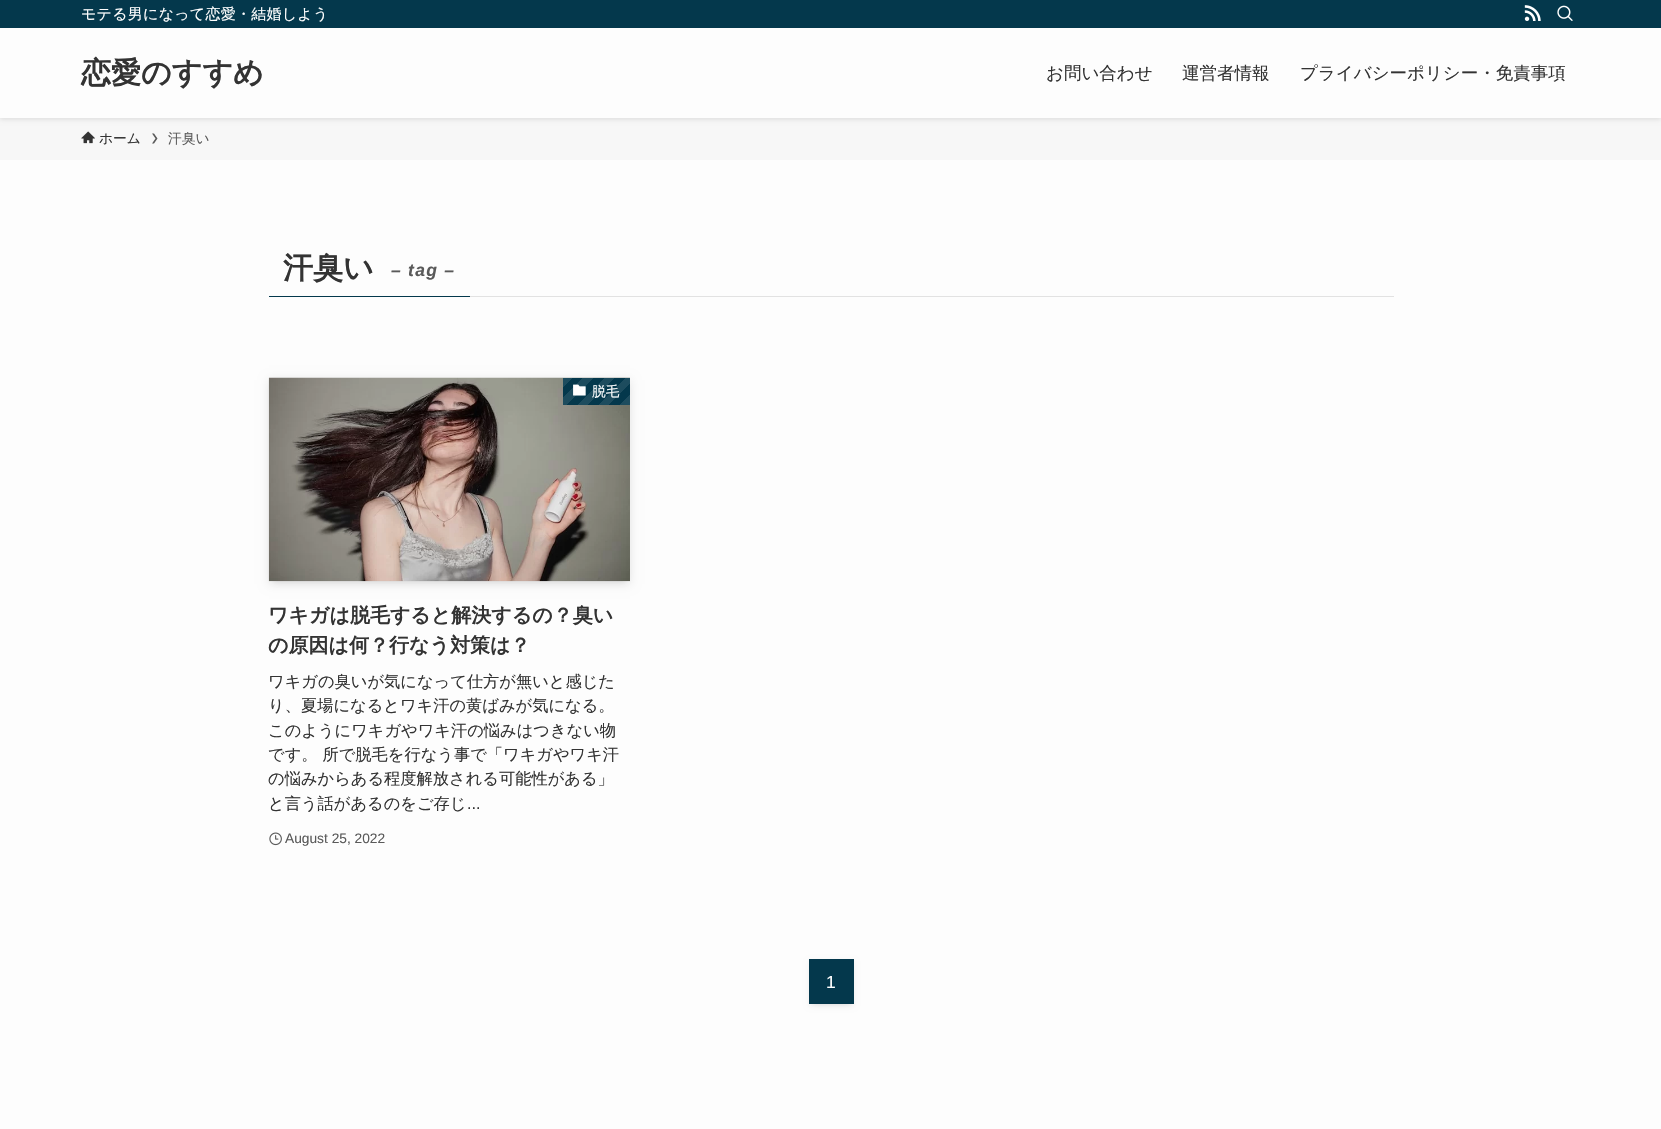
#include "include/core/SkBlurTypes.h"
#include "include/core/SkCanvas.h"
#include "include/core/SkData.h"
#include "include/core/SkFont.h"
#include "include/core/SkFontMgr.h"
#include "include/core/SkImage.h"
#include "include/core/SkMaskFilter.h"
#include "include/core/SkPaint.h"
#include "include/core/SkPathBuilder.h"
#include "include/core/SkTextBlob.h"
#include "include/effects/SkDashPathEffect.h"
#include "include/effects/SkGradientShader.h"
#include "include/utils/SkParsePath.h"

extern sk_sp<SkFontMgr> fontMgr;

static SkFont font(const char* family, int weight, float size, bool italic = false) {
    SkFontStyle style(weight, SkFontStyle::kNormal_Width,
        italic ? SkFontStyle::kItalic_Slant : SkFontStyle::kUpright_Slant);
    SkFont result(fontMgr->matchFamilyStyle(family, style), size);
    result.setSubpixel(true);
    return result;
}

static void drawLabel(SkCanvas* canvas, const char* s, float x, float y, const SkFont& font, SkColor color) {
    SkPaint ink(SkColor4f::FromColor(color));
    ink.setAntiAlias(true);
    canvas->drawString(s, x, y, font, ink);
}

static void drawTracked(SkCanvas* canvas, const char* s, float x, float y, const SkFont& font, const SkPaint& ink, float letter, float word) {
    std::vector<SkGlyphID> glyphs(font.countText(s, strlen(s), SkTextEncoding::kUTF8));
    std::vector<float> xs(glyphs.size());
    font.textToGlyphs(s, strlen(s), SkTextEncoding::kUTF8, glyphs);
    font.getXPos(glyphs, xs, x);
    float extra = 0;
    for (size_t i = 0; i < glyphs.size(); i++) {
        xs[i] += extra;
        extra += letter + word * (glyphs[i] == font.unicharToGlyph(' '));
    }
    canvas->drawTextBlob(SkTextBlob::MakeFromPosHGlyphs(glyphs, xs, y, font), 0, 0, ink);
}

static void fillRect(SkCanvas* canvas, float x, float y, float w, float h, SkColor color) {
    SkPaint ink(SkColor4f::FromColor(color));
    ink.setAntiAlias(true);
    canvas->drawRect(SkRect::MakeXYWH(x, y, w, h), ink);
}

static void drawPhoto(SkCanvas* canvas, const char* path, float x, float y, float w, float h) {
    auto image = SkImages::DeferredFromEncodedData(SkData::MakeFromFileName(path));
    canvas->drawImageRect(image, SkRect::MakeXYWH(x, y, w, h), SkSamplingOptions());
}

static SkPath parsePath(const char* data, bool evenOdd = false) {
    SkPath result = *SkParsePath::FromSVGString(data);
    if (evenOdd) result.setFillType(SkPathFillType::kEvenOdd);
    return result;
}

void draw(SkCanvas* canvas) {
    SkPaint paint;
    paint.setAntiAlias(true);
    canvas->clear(0xFFFDFDFD);
    fillRect(canvas, 0, 118, 1661, 42, 0xFFF7F7F7);
    paint.setColor(0x1F000000);
    paint.setMaskFilter(SkMaskFilter::MakeBlur(kNormal_SkBlurStyle, 2.5f));
    canvas->drawRect(SkRect::MakeXYWH(0, 1, 1661, 118), paint);
    paint.setMaskFilter(nullptr);
    fillRect(canvas, 0, 28, 1661, 90, 0xFFFDFDFD);
    fillRect(canvas, 0, 0, 1661, 28, 0xFF04384C);
    SkFont font1 = font("WenQuanYi Zen Hei", 500, 15);
    paint.setColor(0xFFFFFFFF);
    drawTracked(canvas, "モテる男になって恋愛・結婚しよう", 81, 19, font1, paint, 0.25f, 0);
    drawPhoto(canvas, "assets/img1.png", 1524, 5, 17, 16);
    drawPhoto(canvas, "assets/img2.png", 1557, 5, 16, 16);
    SkFont font2 = font("WenQuanYi Zen Hei", 700, 30);
    drawLabel(canvas, "恋愛のすすめ", 81, 83, font2, 0xFF333333);
    SkFont font3 = font("WenQuanYi Zen Hei", 500, 17.5f);
    drawLabel(canvas, "お問い合わせ", 1046, 79, font3, 0xFF333333);
    drawLabel(canvas, "運営者情報", 1182, 79, font3, 0xFF333333);
    drawLabel(canvas, "プライバシーポリシー・免責事項", 1300, 79, font3, 0xFF333333);
    drawPhoto(canvas, "assets/img3.png", 81, 131, 14, 13);
    SkFont font4 = font("WenQuanYi Zen Hei", 500, 13.75f);
    drawLabel(canvas, "ホーム", 99, 143, font4, 0xFF333333);
    paint.setColor(0xFF5A5A5A);
    canvas->drawPath(parsePath("M154 133.5H152L155.5 138.5L152 143.5H154L157.5 138.5Z"), paint);
    drawLabel(canvas, "汗臭い", 168, 143, font4, 0xFF5A5A5A);
    fillRect(canvas, 470, 296, 924, 1, 0xFFE2E2E2);
    fillRect(canvas, 269, 296, 201, 1, 0xFF04384C);
    drawLabel(canvas, "汗臭い", 283, 278, font2, 0xFF333333);
    SkFont font5 = font("Liberation Sans", 700, 17.5f, true);
    drawTracked(canvas, "– tag –", 391, 276, font5, paint, 1.25f, 0);
    paint.setColor(0x1A000000);
    paint.setMaskFilter(SkMaskFilter::MakeBlur(kNormal_SkBlurStyle, 2.5f));
    canvas->drawRect(SkRect::MakeXYWH(274, 388, 351, 193), paint);
    paint.setMaskFilter(nullptr);
    paint.setMaskFilter(SkMaskFilter::MakeBlur(kNormal_SkBlurStyle, 5));
    canvas->drawRect(SkRect::MakeXYWH(269, 380, 361, 204), paint);
    paint.setMaskFilter(nullptr);
    drawPhoto(canvas, "assets/img4.png", 268, 377, 362, 205);
    {
        const SkColor colors[] = {0xFF1D4C5E, 0xFF1D4C5E, 0xFF04384C, 0xFF04384C, 0xFF1D4C5E, 0xFF1D4C5E, 0xFF04384C, 0xFF04384C, 0xFF1D4C5E, 0xFF1D4C5E, 0xFF04384C, 0xFF04384C, 0xFF1D4C5E, 0xFF1D4C5E, 0xFF04384C, 0xFF04384C, 0xFF1D4C5E, 0xFF1D4C5E, 0xFF04384C, 0xFF04384C};
        const float stops[] = {0, 0.1f, 0.1f, 0.2f, 0.2f, 0.3f, 0.3f, 0.4f, 0.4f, 0.5f, 0.5f, 0.6f, 0.6f, 0.7f, 0.7f, 0.8f, 0.8f, 0.9f, 0.9f, 1};
        const SkPoint ends[] = {{620, 415}, {567, 362}};
        paint.setShader(SkGradientShader::MakeLinear(ends, colors, stops, 20, SkTileMode::kClamp));
        paint.setAlpha(255);
    }
    canvas->drawRect(SkRect::MakeXYWH(563, 378, 67, 27), paint);
    drawPhoto(canvas, "assets/img5.png", 573, 384, 13, 12);
    drawLabel(canvas, "脱毛", 592, 396, font4, 0xFFFFFFFF);
    SkFont font6 = font("WenQuanYi Zen Hei", 700, 20);
    drawLabel(canvas, "ワキガは脱毛すると解決するの？臭い", 268, 622, font6, 0xFF333333);
    drawLabel(canvas, "の原因は何？行なう対策は？", 268, 652, font6, 0xFF333333);
    SkFont font7 = font("WenQuanYi Zen Hei", 500, 16.25f);
    drawLabel(canvas, "ワキガの臭いが気になって仕方が無いと感じた", 268, 687, font7, 0xFF333333);
    drawLabel(canvas, "り、夏場になるとワキ汗の黄ばみが気になる。", 268, 711, font7, 0xFF333333);
    drawLabel(canvas, "このようにワキガやワキ汗の悩みはつきない物", 268, 736, font7, 0xFF333333);
    drawLabel(canvas, "です。 所で脱毛を行なう事で「ワキガやワキ汗", 268, 760, font7, 0xFF333333);
    drawLabel(canvas, "の悩みからある程度解放される可能性がある」", 268, 784, font7, 0xFF333333);
    drawLabel(canvas, "と言う話があるのをご存じ", 268, 809, font7, 0xFF333333);
    SkFont font8 = font("Liberation Sans", 400, 16.25f);
    drawLabel(canvas, "...", 467, 809, font8, 0xFF333333);
    drawPhoto(canvas, "assets/img6.png", 269, 832, 13, 14);
    SkFont font9 = font("Liberation Sans", 400, 13.75f);
    drawLabel(canvas, "August 25, 2022", 285, 843, font9, 0xFF5A5A5A);
    paint.setShader(nullptr);
    paint.setColor(0x1A000000);
    paint.setMaskFilter(SkMaskFilter::MakeBlur(kNormal_SkBlurStyle, 2.5f));
    canvas->drawRect(SkRect::MakeXYWH(814, 969, 35, 35), paint);
    paint.setMaskFilter(nullptr);
    paint.setColor(0x0D000000);
    paint.setMaskFilter(SkMaskFilter::MakeBlur(kNormal_SkBlurStyle, 2.5f));
    canvas->drawRect(SkRect::MakeXYWH(809, 961, 45, 45), paint);
    paint.setMaskFilter(nullptr);
    fillRect(canvas, 809, 959, 45, 45, 0xFF04384C);
    SkFont font10 = font("Liberation Sans", 400, 17.5f);
    drawLabel(canvas, "1", 826, 988, font10, 0xFFFFFFFF);
}
